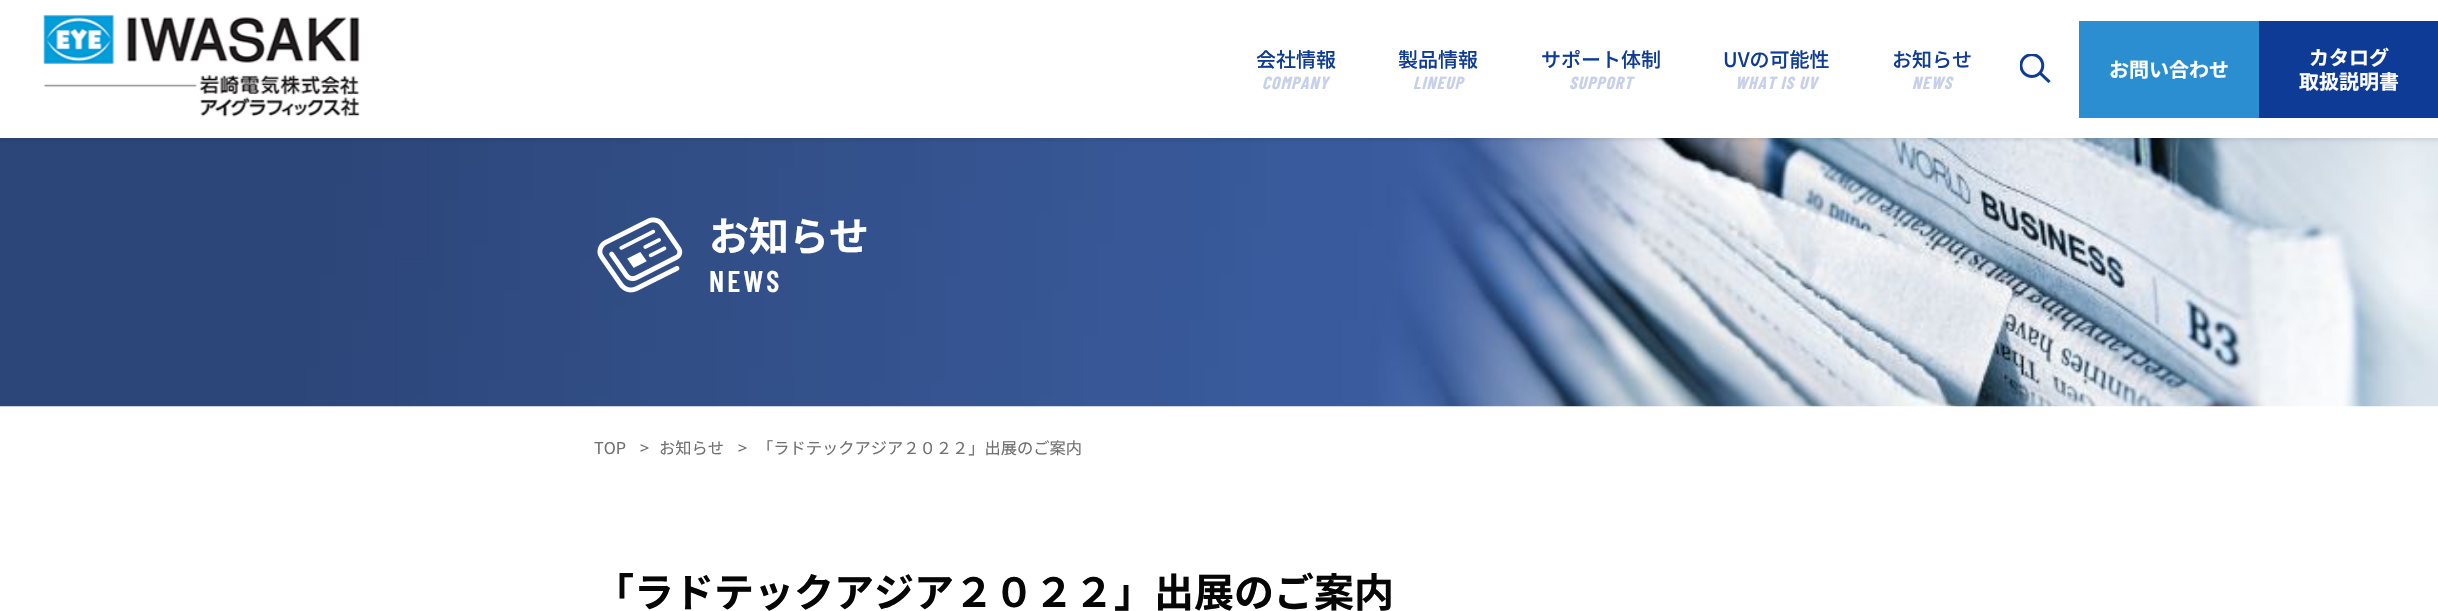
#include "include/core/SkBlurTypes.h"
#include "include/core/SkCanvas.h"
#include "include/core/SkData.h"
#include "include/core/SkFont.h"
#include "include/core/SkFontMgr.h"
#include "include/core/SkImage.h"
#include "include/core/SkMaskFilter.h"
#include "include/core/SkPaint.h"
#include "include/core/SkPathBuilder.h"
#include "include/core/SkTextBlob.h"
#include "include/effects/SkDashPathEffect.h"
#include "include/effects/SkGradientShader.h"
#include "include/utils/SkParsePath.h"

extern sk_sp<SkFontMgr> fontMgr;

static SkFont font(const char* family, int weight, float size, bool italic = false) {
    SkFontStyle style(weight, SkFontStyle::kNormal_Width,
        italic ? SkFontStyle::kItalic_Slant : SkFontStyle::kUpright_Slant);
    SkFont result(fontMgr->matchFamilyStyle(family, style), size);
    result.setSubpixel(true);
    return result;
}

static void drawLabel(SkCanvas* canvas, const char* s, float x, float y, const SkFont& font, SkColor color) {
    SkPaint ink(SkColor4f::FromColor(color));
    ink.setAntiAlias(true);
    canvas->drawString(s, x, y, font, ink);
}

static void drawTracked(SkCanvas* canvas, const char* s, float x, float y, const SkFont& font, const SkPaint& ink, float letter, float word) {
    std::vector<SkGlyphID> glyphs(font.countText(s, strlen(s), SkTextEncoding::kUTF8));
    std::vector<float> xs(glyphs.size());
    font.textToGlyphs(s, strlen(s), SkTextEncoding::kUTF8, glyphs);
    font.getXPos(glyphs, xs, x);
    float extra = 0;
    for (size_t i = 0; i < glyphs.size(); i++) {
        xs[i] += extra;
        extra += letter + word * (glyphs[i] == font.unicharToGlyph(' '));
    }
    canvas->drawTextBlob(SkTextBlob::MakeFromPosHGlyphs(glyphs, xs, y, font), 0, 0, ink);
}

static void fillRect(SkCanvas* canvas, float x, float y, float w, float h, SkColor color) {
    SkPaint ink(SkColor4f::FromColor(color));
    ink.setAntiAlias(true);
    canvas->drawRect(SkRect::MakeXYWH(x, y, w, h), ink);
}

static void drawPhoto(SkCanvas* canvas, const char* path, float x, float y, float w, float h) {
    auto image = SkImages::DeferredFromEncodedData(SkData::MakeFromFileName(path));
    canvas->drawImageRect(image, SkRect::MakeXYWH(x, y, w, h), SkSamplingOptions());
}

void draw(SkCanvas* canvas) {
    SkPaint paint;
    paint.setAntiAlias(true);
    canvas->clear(0xFFFFFFFF);
    drawPhoto(canvas, "assets/img3.png", 0, 138, 2438, 269);
    paint.setColor(0x1A000000);
    paint.setMaskFilter(SkMaskFilter::MakeBlur(kNormal_SkBlurStyle, 2));
    canvas->drawRect(SkRect::MakeXYWH(0, 3, 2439, 137), paint);
    paint.setMaskFilter(nullptr);
    fillRect(canvas, 0, 0, 2438, 138, 0xFFFFFFFF);
    drawPhoto(canvas, "assets/img1.png", 43, 14, 317, 103);
    SkFont font1 = font("Noto Sans JP", 500, 20);
    drawLabel(canvas, "会社情報", 1256, 67, font1, 0xFF0E3B95);
    SkFont font2 = font("Barlow Condensed", 700, 17.5f, true);
    paint.setColor(0xFFC8CFE8);
    drawTracked(canvas, "COMPANY", 1262, 89, font2, paint, 1, 0);
    drawLabel(canvas, "製品情報", 1398, 67, font1, 0xFF0E3B95);
    drawTracked(canvas, "LINEUP", 1413, 89, font2, paint, 1, 0);
    drawLabel(canvas, "サポート体制", 1541, 67, font1, 0xFF0E3B95);
    drawTracked(canvas, "SUPPORT", 1569, 89, font2, paint, 1, 0);
    drawLabel(canvas, "UVの可能性", 1723, 67, font1, 0xFF0E3B95);
    drawTracked(canvas, "WHAT IS UV", 1735, 89, font2, paint, 1, 0);
    drawLabel(canvas, "お知らせ", 1892, 67, font1, 0xFF0E3B95);
    drawTracked(canvas, "NEWS", 1912, 89, font2, paint, 1, 0);
    drawPhoto(canvas, "assets/img2.png", 2020, 54, 31, 29);
    fillRect(canvas, 2079, 21, 180, 97, 0xFF2A8ED1);
    SkFont font3 = font("Noto Sans JP", 700, 20);
    drawLabel(canvas, "お問い合わせ", 2109, 77, font3, 0xFFFFFFFF);
    fillRect(canvas, 2259, 21, 179, 97, 0xFF0E3B95);
    drawLabel(canvas, "カタログ", 2309, 65, font3, 0xFFFFFFFF);
    drawLabel(canvas, "取扱説明書", 2299, 89, font3, 0xFFFFFFFF);
    drawPhoto(canvas, "assets/img4.png", 597, 217, 86, 76);
    SkFont font4 = font("Noto Sans JP", 700, 40);
    drawLabel(canvas, "お知らせ", 709, 251, font4, 0xFFFFFFFF);
    SkFont font5 = font("Barlow Condensed", 600, 30);
    paint.setColor(0xFFFFFFFF);
    drawTracked(canvas, "NEWS", 709, 292, font5, paint, 3, 0);
    SkFont font6 = font("Noto Sans JP", 400, 16.25f);
    drawLabel(canvas, "TOP", 594, 454, font6, 0xFF707070);
    drawLabel(canvas, ">", 640, 454, font6, 0xFF707070);
    drawLabel(canvas, "お知らせ", 659, 454, font6, 0xFF707070);
    drawLabel(canvas, ">", 738, 454, font6, 0xFF707070);
    drawLabel(canvas, "「ラドテックアジア２０２２」出展のご案内", 757, 454, font6, 0xFF707070);
    drawLabel(canvas, "「ラドテックアジア２０２２」出展のご案内", 594, 607, font4, 0xFF060606);
}
